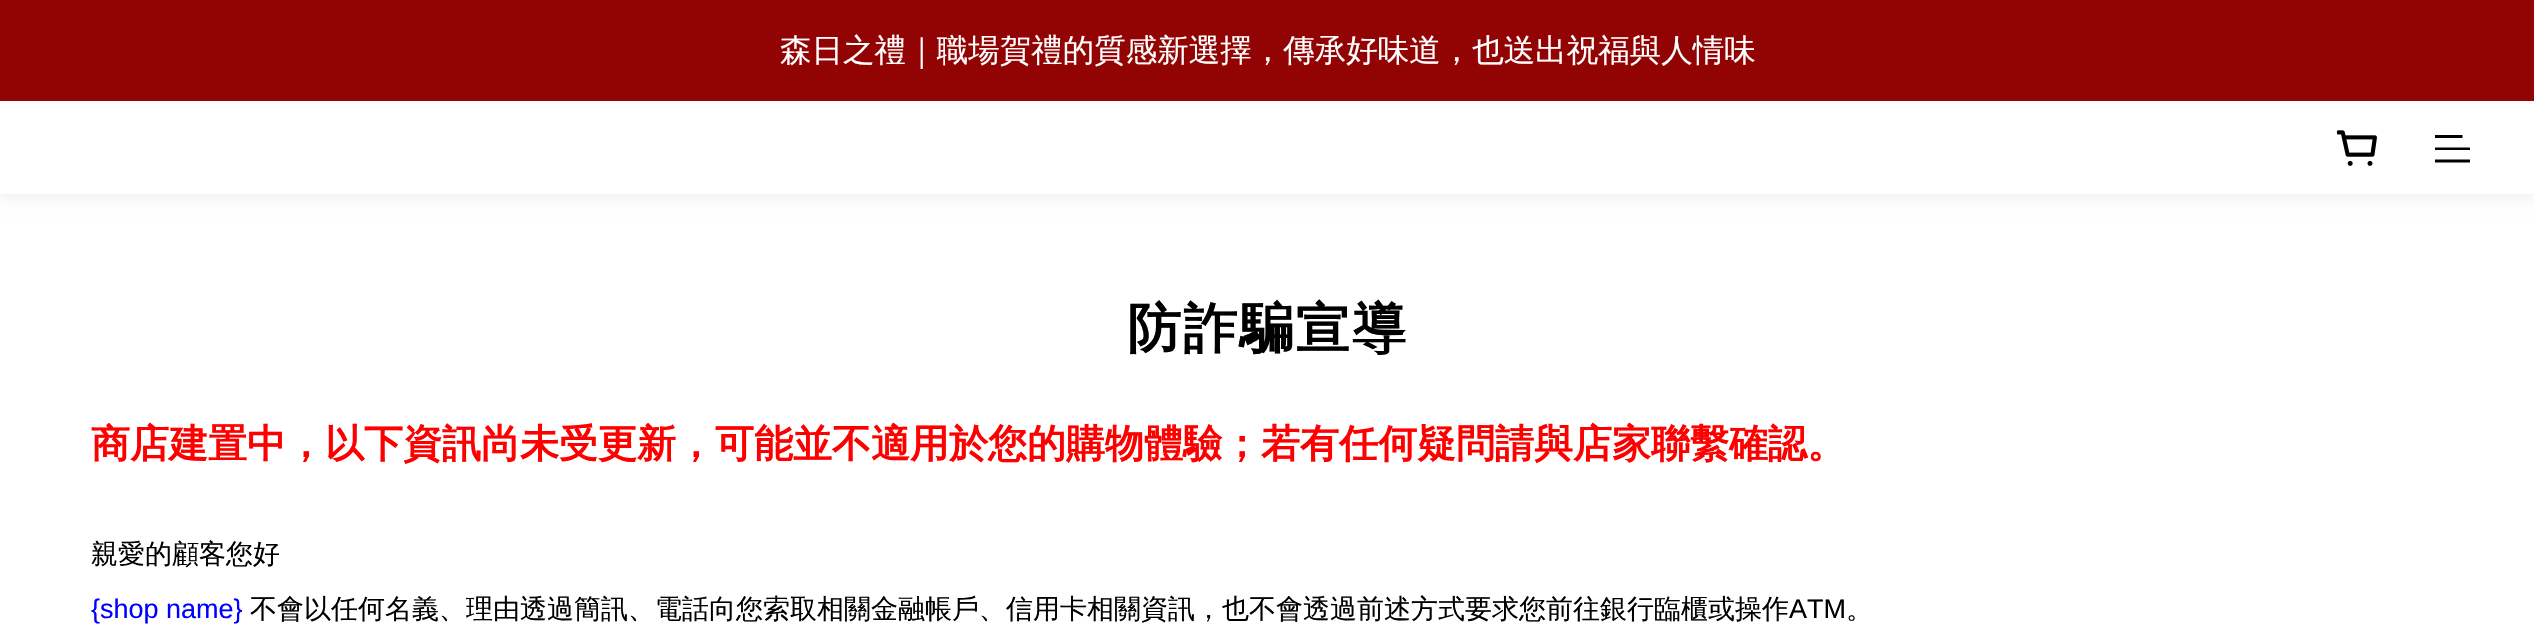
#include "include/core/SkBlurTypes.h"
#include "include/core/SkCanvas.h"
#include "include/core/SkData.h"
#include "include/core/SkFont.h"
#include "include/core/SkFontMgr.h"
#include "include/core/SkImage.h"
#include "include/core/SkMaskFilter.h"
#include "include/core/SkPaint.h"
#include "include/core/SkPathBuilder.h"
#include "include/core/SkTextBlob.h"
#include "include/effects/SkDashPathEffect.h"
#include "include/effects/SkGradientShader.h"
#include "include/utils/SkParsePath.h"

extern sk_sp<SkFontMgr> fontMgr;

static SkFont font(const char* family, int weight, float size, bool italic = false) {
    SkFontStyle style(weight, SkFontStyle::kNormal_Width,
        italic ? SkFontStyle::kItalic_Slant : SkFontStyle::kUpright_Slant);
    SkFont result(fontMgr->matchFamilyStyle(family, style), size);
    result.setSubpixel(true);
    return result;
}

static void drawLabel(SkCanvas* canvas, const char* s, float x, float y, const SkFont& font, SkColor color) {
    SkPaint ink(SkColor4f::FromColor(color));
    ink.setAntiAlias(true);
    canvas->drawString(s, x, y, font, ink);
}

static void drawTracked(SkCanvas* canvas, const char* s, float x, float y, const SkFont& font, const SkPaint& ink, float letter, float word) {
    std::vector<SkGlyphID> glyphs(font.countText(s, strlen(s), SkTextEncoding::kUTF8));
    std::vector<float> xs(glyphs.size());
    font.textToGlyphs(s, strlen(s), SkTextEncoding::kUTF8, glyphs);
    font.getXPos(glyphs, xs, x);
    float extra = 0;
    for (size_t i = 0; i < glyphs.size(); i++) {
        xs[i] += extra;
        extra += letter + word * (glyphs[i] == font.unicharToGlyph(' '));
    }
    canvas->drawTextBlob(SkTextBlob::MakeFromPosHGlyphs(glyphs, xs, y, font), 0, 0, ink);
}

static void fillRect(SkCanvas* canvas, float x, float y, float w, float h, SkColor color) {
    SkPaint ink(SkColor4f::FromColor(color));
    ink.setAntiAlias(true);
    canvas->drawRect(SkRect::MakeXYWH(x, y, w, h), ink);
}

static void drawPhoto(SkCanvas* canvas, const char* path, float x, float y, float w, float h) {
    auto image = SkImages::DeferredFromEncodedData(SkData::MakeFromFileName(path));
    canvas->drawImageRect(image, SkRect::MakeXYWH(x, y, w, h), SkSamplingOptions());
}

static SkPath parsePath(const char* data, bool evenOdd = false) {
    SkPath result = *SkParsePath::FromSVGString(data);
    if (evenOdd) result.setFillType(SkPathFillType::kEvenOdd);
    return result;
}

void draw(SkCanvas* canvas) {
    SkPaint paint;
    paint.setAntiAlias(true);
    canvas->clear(0xFFFFFFFF);
    fillRect(canvas, 0, 0, 2534, 101, 0xFF920404);
    SkFont font1 = font("WenQuanYi Zen Hei", 500, 31.5f);
    drawLabel(canvas, "森日之禮｜職場賀禮的質感新選擇，傳承好味道，也送出祝福與人情味", 780, 61, font1, 0xFFFFFFFF);
    paint.setColor(0x0F000000);
    paint.setMaskFilter(SkMaskFilter::MakeBlur(kNormal_SkBlurStyle, 7));
    canvas->drawRect(SkRect::MakeXYWH(0, 106, 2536, 92), paint);
    paint.setMaskFilter(nullptr);
    fillRect(canvas, 0, 101, 2534, 93, 0xFFFFFFFF);
    drawPhoto(canvas, "assets/img1.png", 2336, 130, 41, 36);
    paint.setColor(0xFF000000);
    canvas->drawPath(parsePath("M2470 150V147.5H2435V150ZM2462.5 138V135H2435V138ZM2470 162.5V159.5H2435V162.5Z"), paint);
    SkFont font2 = font("WenQuanYi Zen Hei", 700, 54);
    drawTracked(canvas, "防詐騙宣導", 1127, 347, font2, paint, 2.25f, 0);
    SkFont font3 = font("WenQuanYi Zen Hei", 700, 39);
    drawLabel(canvas, "商店建置中，以下資訊尚未受更新，可能並不適用於您的購物體驗；若有任何疑問請與店家聯繫確認。", 91, 457, font3, 0xFFFF0000);
    SkFont font4 = font("WenQuanYi Zen Hei", 500, 27);
    drawLabel(canvas, "親愛的顧客您好", 91, 563, font4, 0xFF000000);
    SkFont font5 = font("Liberation Sans", 400, 27);
    drawLabel(canvas, "{shop name}", 91, 618, font5, 0xFF0000FF);
    drawLabel(canvas, "不會以任何名義、理由透過簡訊、電話向您索取相關金融帳戶、信用卡相關資訊，也不會透過前述方式要求您前往銀行臨櫃或操作", 250, 618, font4, 0xFF000000);
    drawLabel(canvas, "ATM", 1789, 618, font5, 0xFF000000);
    drawLabel(canvas, "。", 1846, 618, font4, 0xFF000000);
}
